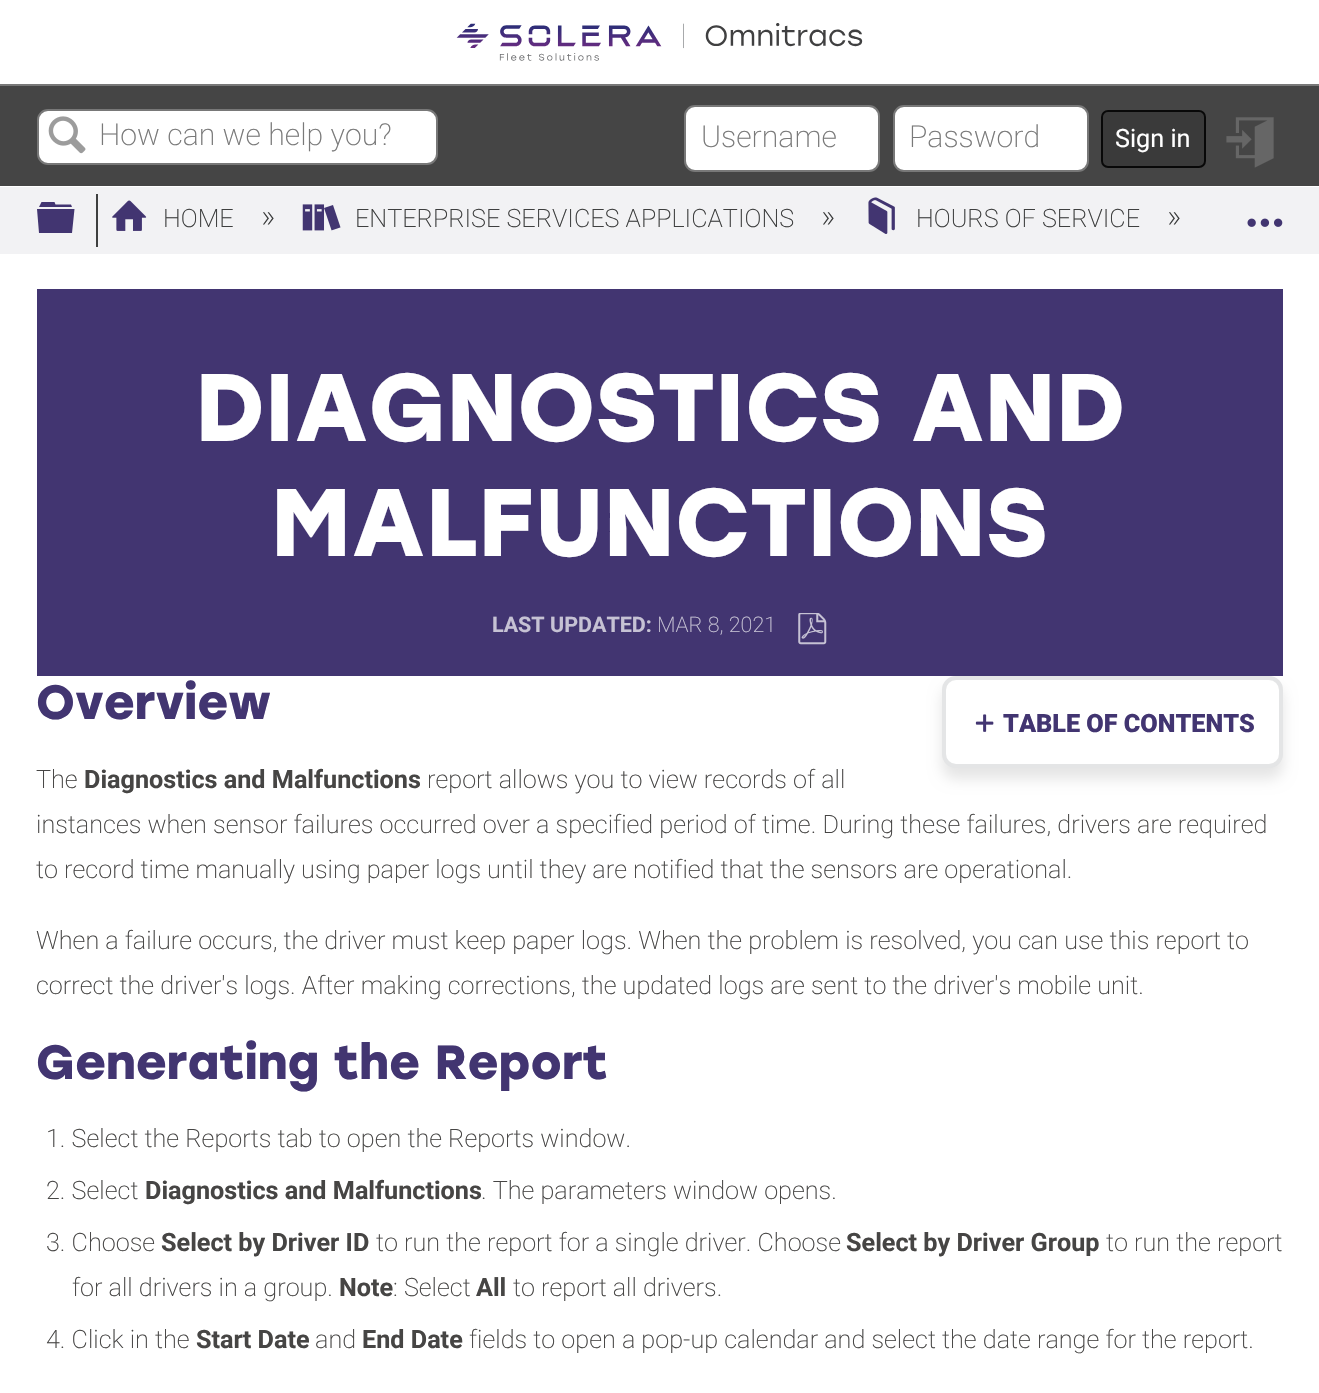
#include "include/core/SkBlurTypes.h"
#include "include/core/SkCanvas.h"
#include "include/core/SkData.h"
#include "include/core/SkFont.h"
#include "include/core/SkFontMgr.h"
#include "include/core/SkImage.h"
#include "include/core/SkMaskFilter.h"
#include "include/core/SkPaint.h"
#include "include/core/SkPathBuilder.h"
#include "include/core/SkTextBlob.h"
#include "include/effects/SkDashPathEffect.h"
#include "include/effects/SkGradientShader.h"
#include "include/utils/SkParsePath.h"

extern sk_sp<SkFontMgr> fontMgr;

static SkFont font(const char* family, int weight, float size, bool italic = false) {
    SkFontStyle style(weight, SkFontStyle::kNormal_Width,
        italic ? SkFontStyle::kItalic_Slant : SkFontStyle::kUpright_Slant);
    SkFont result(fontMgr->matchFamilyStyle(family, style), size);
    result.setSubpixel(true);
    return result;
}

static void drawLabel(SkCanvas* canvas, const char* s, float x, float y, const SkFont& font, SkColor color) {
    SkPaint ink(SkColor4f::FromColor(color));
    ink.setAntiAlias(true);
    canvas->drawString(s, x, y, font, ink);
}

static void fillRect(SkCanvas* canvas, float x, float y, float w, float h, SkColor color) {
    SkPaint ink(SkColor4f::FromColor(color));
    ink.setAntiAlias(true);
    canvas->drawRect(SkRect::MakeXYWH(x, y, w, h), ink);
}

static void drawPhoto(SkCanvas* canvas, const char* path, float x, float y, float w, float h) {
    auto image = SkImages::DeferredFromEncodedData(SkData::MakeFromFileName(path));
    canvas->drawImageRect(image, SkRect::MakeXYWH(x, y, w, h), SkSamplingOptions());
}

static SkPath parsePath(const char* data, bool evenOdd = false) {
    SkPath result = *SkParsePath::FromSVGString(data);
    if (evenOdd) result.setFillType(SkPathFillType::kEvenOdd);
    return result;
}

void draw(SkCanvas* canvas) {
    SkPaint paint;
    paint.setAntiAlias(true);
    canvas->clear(0xFFFFFFFF);
    drawPhoto(canvas, "assets/img1.png", 456, 23, 407, 38);
    fillRect(canvas, 0, 86, 1319, 100, 0xFF454545);
    fillRect(canvas, 0, 84, 1319, 2, 0xFF787878);
    paint.setColor(0xFFFFFFFF);
    canvas->drawRoundRect(SkRect::MakeXYWH(38, 110, 399, 54), 10, 10, paint);
    paint.setStroke(true);
    paint.setStrokeWidth(2);
    paint.setColor(0xFF787878);
    canvas->drawRoundRect(SkRect::MakeXYWH(38, 110, 399, 54), 10, 10, paint);
    drawPhoto(canvas, "assets/img2.png", 48, 116, 38, 38);
    SkFont font1 = font("Roboto", 200, 30.25f);
    drawLabel(canvas, "How can we help you?", 99, 145, font1, 0xFF797979);
    paint.setStroke(false);
    paint.setColor(0xFFFFFFFF);
    canvas->drawRoundRect(SkRect::MakeXYWH(685, 106, 194, 65), 10, 10, paint);
    paint.setStroke(true);
    paint.setColor(0xFF787878);
    canvas->drawRoundRect(SkRect::MakeXYWH(685, 106, 194, 65), 10, 10, paint);
    drawLabel(canvas, "Username", 701, 147, font1, 0xFF797979);
    paint.setStroke(false);
    paint.setColor(0xFFFFFFFF);
    canvas->drawRoundRect(SkRect::MakeXYWH(894, 106, 194, 65), 10, 10, paint);
    paint.setStroke(true);
    paint.setColor(0xFF787878);
    canvas->drawRoundRect(SkRect::MakeXYWH(894, 106, 194, 65), 10, 10, paint);
    drawLabel(canvas, "Password", 909, 147, font1, 0xFF797979);
    paint.setStroke(false);
    paint.setColor(0xFF3A3A3A);
    canvas->drawRoundRect(SkRect::MakeXYWH(1102, 111, 103, 56), 6, 6, paint);
    paint.setStroke(true);
    paint.setColor(0xFF080808);
    canvas->drawRoundRect(SkRect::MakeXYWH(1102, 111, 103, 56), 6, 6, paint);
    SkFont font2 = font("Roboto", 400, 25.2f);
    drawLabel(canvas, "Sign in", 1115, 147, font2, 0xFFFFFFFF);
    drawPhoto(canvas, "assets/img3.png", 1226, 117, 48, 51);
    fillRect(canvas, 0, 187, 1319, 67, 0xFFF2F2F4);
    paint.setStroke(false);
    paint.setColor(0xFF423571);
    canvas->drawPath(parsePath("M37 209H74.5L72 233H39ZM71 204.5L72 207H39L41.5 202H54.5L55.5 204.5Z"), paint);
    fillRect(canvas, 96, 194, 2, 53, 0xFF3E3F3F);
    drawPhoto(canvas, "assets/img4.png", 112, 200, 35, 31);
    SkFont font3 = font("Roboto", 200, 25.2f);
    drawLabel(canvas, "HOME", 163, 227, font3, 0xFF3E3F3F);
    SkFont font4 = font("Roboto", 200, 32);
    drawLabel(canvas, "»", 261, 227, font4, 0xFF3E3F3F);
    drawPhoto(canvas, "assets/img5.png", 302, 204, 39, 27);
    drawLabel(canvas, "ENTERPRISE SERVICES APPLICATIONS", 355, 227, font3, 0xFF3E3F3F);
    drawLabel(canvas, "»", 821, 227, font4, 0xFF3E3F3F);
    drawPhoto(canvas, "assets/img6.png", 868, 197, 27, 37);
    drawLabel(canvas, "HOURS OF SERVICE", 916, 227, font3, 0xFF3E3F3F);
    drawLabel(canvas, "»", 1167, 227, font4, 0xFF3E3F3F);
    drawPhoto(canvas, "assets/img7.png", 1247, 218, 36, 9);
    fillRect(canvas, 37, 289, 1246, 387, 0xFF423571);
    SkFont font5 = font("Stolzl", 700, 95.75f);
    drawLabel(canvas, "DIAGNOSTICS AND", 195, 441, font5, 0xFFFFFFFF);
    drawLabel(canvas, "MALFUNCTIONS", 271, 556, font5, 0xFFFFFFFF);
    SkFont font6 = font("Roboto", 700, 21.5f);
    drawLabel(canvas, "LAST UPDATED:", 492, 632, font6, 0xFFC6C2D4);
    SkFont font7 = font("Roboto", 200, 21.5f);
    drawLabel(canvas, "MAR 8, 2021", 657, 632, font7, 0xFFC6C2D4);
    drawPhoto(canvas, "assets/img8.png", 798, 613, 29, 32);
    SkFont font8 = font("Stolzl", 700, 47.9f);
    drawLabel(canvas, "Overview", 36, 719, font8, 0xFF423571);
    drawLabel(canvas, "The", 36, 788, font3, 0xFF464544);
    SkFont font9 = font("Roboto", 700, 25.2f);
    drawLabel(canvas, "Diagnostics and Malfunctions", 84, 788, font9, 0xFF464544);
    drawLabel(canvas, "report allows you to view records of all", 427, 788, font3, 0xFF464544);
    drawLabel(canvas, "instances when sensor failures occurred over a specified period of time. During these failures, drivers are required", 36, 833, font3, 0xFF464544);
    drawLabel(canvas, "to record time manually using paper logs until they are notified that the sensors are operational.", 36, 878, font3, 0xFF464544);
    drawLabel(canvas, "When a failure occurs, the driver must keep paper logs. When the problem is resolved, you can use this report to", 36, 949, font3, 0xFF464544);
    drawLabel(canvas, "correct the driver's logs. After making corrections, the updated logs are sent to the driver's mobile unit.", 36, 994, font3, 0xFF464544);
    drawLabel(canvas, "Generating the Report", 36, 1079, font8, 0xFF423571);
    drawLabel(canvas, "1. Select the Reports tab to open the Reports window.", 46, 1147, font3, 0xFF464544);
    drawLabel(canvas, "2. Select", 46, 1199, font3, 0xFF464544);
    drawLabel(canvas, "Diagnostics and Malfunctions", 145, 1199, font9, 0xFF464544);
    drawLabel(canvas, ". The parameters window opens.", 481, 1199, font3, 0xFF464544);
    drawLabel(canvas, "3. Choose", 46, 1251, font3, 0xFF464544);
    drawLabel(canvas, "Select by Driver ID", 161, 1251, font9, 0xFF464544);
    drawLabel(canvas, "to run the report for a single driver. Choose", 376, 1251, font3, 0xFF464544);
    drawLabel(canvas, "Select by Driver Group", 846, 1251, font9, 0xFF464544);
    drawLabel(canvas, "to run the report", 1106, 1251, font3, 0xFF464544);
    drawLabel(canvas, "for all drivers in a group.", 72, 1296, font3, 0xFF464544);
    drawLabel(canvas, "Note", 339, 1296, font9, 0xFF464544);
    drawLabel(canvas, ": Select", 393, 1296, font3, 0xFF464544);
    drawLabel(canvas, "All", 476, 1296, font9, 0xFF464544);
    drawLabel(canvas, "to report all drivers.", 513, 1296, font3, 0xFF464544);
    drawLabel(canvas, "4. Click in the", 46, 1348, font3, 0xFF464544);
    drawLabel(canvas, "Start Date", 196, 1348, font9, 0xFF464544);
    drawLabel(canvas, "and", 315, 1348, font3, 0xFF464544);
    drawLabel(canvas, "End Date", 362, 1348, font9, 0xFF464544);
    drawLabel(canvas, "fields to open a pop-up calendar and select the date range for the report.", 469, 1348, font3, 0xFF464544);
    paint.setColor(0x1A000000);
    paint.setMaskFilter(SkMaskFilter::MakeBlur(kNormal_SkBlurStyle, 7));
    canvas->drawRoundRect(SkRect::MakeXYWH(942, 686, 341, 93), 14, 14, paint);
    paint.setMaskFilter(nullptr);
    paint.setColor(0xFFFFFFFF);
    canvas->drawRoundRect(SkRect::MakeXYWH(944, 678, 337, 88), 12, 12, paint);
    paint.setStroke(true);
    paint.setStrokeWidth(4);
    paint.setColor(0xFFE4E5E6);
    canvas->drawRoundRect(SkRect::MakeXYWH(944, 678, 337, 88), 12, 12, paint);
    drawPhoto(canvas, "assets/img9.png", 975, 714, 19, 18);
    SkFont font10 = font("Roboto", 900, 25.2f);
    drawLabel(canvas, "TABLE OF CONTENTS", 1003, 732, font10, 0xFF423571);
}
